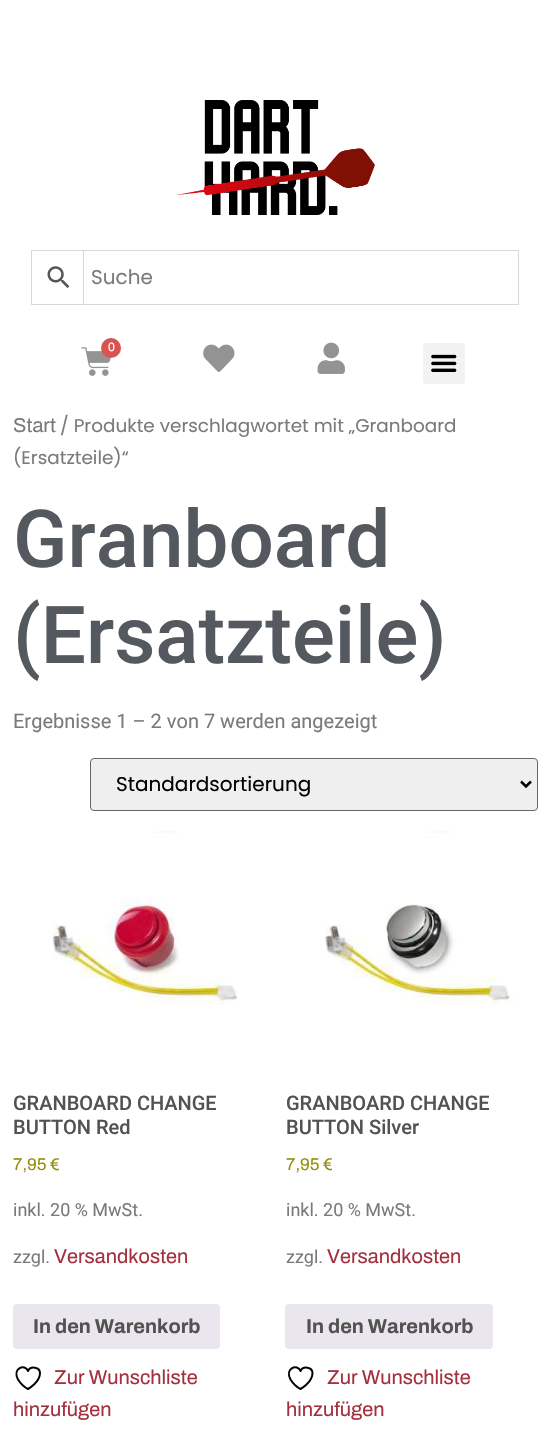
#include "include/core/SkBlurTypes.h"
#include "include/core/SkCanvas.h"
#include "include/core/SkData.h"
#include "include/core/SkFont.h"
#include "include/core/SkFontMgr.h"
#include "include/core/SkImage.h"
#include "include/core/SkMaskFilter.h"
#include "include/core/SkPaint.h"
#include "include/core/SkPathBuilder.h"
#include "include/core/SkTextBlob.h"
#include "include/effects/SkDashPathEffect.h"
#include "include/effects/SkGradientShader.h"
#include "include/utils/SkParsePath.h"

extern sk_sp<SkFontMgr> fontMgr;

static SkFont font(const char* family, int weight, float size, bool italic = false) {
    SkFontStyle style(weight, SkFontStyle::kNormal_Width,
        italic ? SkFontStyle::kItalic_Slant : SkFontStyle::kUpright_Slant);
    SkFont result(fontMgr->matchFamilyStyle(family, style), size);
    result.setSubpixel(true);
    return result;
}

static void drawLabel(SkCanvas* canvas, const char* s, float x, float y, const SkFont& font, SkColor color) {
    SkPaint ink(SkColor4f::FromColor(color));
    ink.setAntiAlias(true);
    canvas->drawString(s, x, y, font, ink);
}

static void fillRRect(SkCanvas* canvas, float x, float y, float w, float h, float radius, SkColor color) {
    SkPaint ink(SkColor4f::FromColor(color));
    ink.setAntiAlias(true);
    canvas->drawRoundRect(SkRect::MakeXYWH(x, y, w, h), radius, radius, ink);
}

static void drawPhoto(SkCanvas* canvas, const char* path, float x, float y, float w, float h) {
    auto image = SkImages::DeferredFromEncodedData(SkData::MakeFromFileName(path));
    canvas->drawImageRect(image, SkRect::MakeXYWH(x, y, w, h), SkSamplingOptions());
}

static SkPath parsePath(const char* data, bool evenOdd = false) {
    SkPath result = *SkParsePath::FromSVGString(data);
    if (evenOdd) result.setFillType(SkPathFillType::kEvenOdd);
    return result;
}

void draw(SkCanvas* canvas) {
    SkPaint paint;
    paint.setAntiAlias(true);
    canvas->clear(0xFFFFFFFF);
    drawPhoto(canvas, "assets/img1.png", 175, 100, 200, 115);
    paint.setStroke(true);
    paint.setStrokeWidth(1);
    paint.setColor(0xFFD8D8D8);
    canvas->drawRect(SkRect::MakeXYWH(31.5f, 250.5f, 52, 54), paint);
    drawPhoto(canvas, "assets/img2.png", 47, 266, 23, 22);
    canvas->drawRect(SkRect::MakeXYWH(83.5f, 250.5f, 435, 54), paint);
    SkFont font1 = font("Poppins", 400, 20);
    drawLabel(canvas, "Suche", 91, 284, font1, 0xFF7A7A7A);
    drawPhoto(canvas, "assets/img3.png", 81, 347, 30, 29);
    paint.setStroke(false);
    paint.setColor(0xFFD9534F);
    canvas->drawCircle(111, 348, 10, paint);
    SkFont font2 = font("Archivo", 400, 12);
    drawLabel(canvas, "0", 108, 351, font2, 0xFFFFFFFF);
    drawPhoto(canvas, "assets/img4.png", 203, 344, 32, 28);
    drawPhoto(canvas, "assets/img5.png", 317, 342, 28, 32);
    fillRRect(canvas, 423, 343, 42, 41, 4, 0xFFF2F2F2);
    drawPhoto(canvas, "assets/img6.png", 431, 354, 26, 18);
    SkFont font3 = font("Archivo", 400, 20);
    drawLabel(canvas, "Start", 13, 432, font3, 0xFF7A7A7A);
    SkFont font4 = font("Poppins", 400, 18.4f);
    drawLabel(canvas, "/ Produkte verschlagwortet mit „Granboard", 60, 432, font4, 0xFF7A7A7A);
    drawLabel(canvas, "(Ersatzteile)“", 13, 464, font4, 0xFF7A7A7A);
    SkFont font5 = font("Roboto", 500, 80);
    drawLabel(canvas, "Granboard", 13, 567, font5, 0xFF54595F);
    drawLabel(canvas, "(Ersatzteile)", 13, 663, font5, 0xFF54595F);
    SkFont font6 = font("Roboto", 400, 20);
    drawLabel(canvas, "Ergebnisse 1 – 2 von 7 werden angezeigt", 13, 728, font6, 0xFF7A7A7A);
    paint.setColor(0xFFEFEFEF);
    canvas->drawRoundRect(SkRect::MakeXYWH(90.5f, 758.5f, 447, 52), 3.5f, 3.5f, paint);
    paint.setStroke(true);
    paint.setColor(0xFF666666);
    canvas->drawRoundRect(SkRect::MakeXYWH(90.5f, 758.5f, 447, 52), 3.5f, 3.5f, paint);
    paint.setStrokeWidth(2.5f);
    paint.setColor(0xFF000000);
    canvas->drawPath(parsePath("M521 781.5L526 786.5L531 781.5"), paint);
    drawLabel(canvas, "Standardsortierung", 116, 791, font1, 0xFF000000);
    drawPhoto(canvas, "assets/img7.png", 52, 831, 186, 174);
    SkFont font7 = font("Roboto", 500, 20);
    drawLabel(canvas, "GRANBOARD CHANGE", 13, 1110, font7, 0xFF525252);
    drawLabel(canvas, "BUTTON Red", 13, 1134, font7, 0xFF525252);
    SkFont font8 = font("Archivo", 400, 17);
    drawLabel(canvas, "7,95 €", 13, 1170, font8, 0xFF958E09);
    SkFont font9 = font("Roboto", 400, 18);
    drawLabel(canvas, "inkl. 20 % MwSt.", 13, 1216, font9, 0xFF7A7A7A);
    drawLabel(canvas, "zzgl.", 13, 1263, font9, 0xFF7A7A7A);
    drawLabel(canvas, "Versandkosten", 54, 1263, font3, 0xFFA42F3E);
    fillRRect(canvas, 13, 1304, 207, 45, 4, 0xFFE9E6ED);
    SkFont font10 = font("Archivo", 700, 20);
    drawLabel(canvas, "In den Warenkorb", 33, 1333, font10, 0xFF525252);
    paint.setStrokeWidth(2);
    paint.setStrokeCap(SkPaint::kRound_Cap);
    paint.setStrokeJoin(SkPaint::kRound_Join);
    canvas->drawPath(parsePath("M40 1373C40 1367 30.5 1365.5 28 1371C25 1363.5 12 1368 18 1379.5C20.5 1383.5 24 1387 28 1389C28 1389 40 1382.5 40 1373Z"), paint);
    drawLabel(canvas, "Zur Wunschliste", 54, 1384, font3, 0xFFA42F3E);
    drawLabel(canvas, "hinzufügen", 13, 1416, font3, 0xFFA42F3E);
    drawPhoto(canvas, "assets/img8.png", 324, 831, 189, 174);
    drawLabel(canvas, "GRANBOARD CHANGE", 286, 1110, font7, 0xFF525252);
    drawLabel(canvas, "BUTTON Silver", 286, 1134, font7, 0xFF525252);
    drawLabel(canvas, "7,95 €", 286, 1170, font8, 0xFF958E09);
    drawLabel(canvas, "inkl. 20 % MwSt.", 286, 1216, font9, 0xFF7A7A7A);
    drawLabel(canvas, "zzgl.", 286, 1263, font9, 0xFF7A7A7A);
    drawLabel(canvas, "Versandkosten", 327, 1263, font3, 0xFFA42F3E);
    fillRRect(canvas, 285, 1304, 208, 45, 4, 0xFFE9E6ED);
    drawLabel(canvas, "In den Warenkorb", 306, 1333, font10, 0xFF525252);
    canvas->drawPath(parsePath("M312.5 1373C312.5 1367 303 1365.5 300.5 1371C297.5 1363.5 284.5 1368 290.5 1379.5C293 1383.5 296.5 1387 300.5 1389C300.5 1389 312.5 1382.5 312.5 1373Z"), paint);
    drawLabel(canvas, "Zur Wunschliste", 327, 1384, font3, 0xFFA42F3E);
    drawLabel(canvas, "hinzufügen", 286, 1416, font3, 0xFFA42F3E);
}
